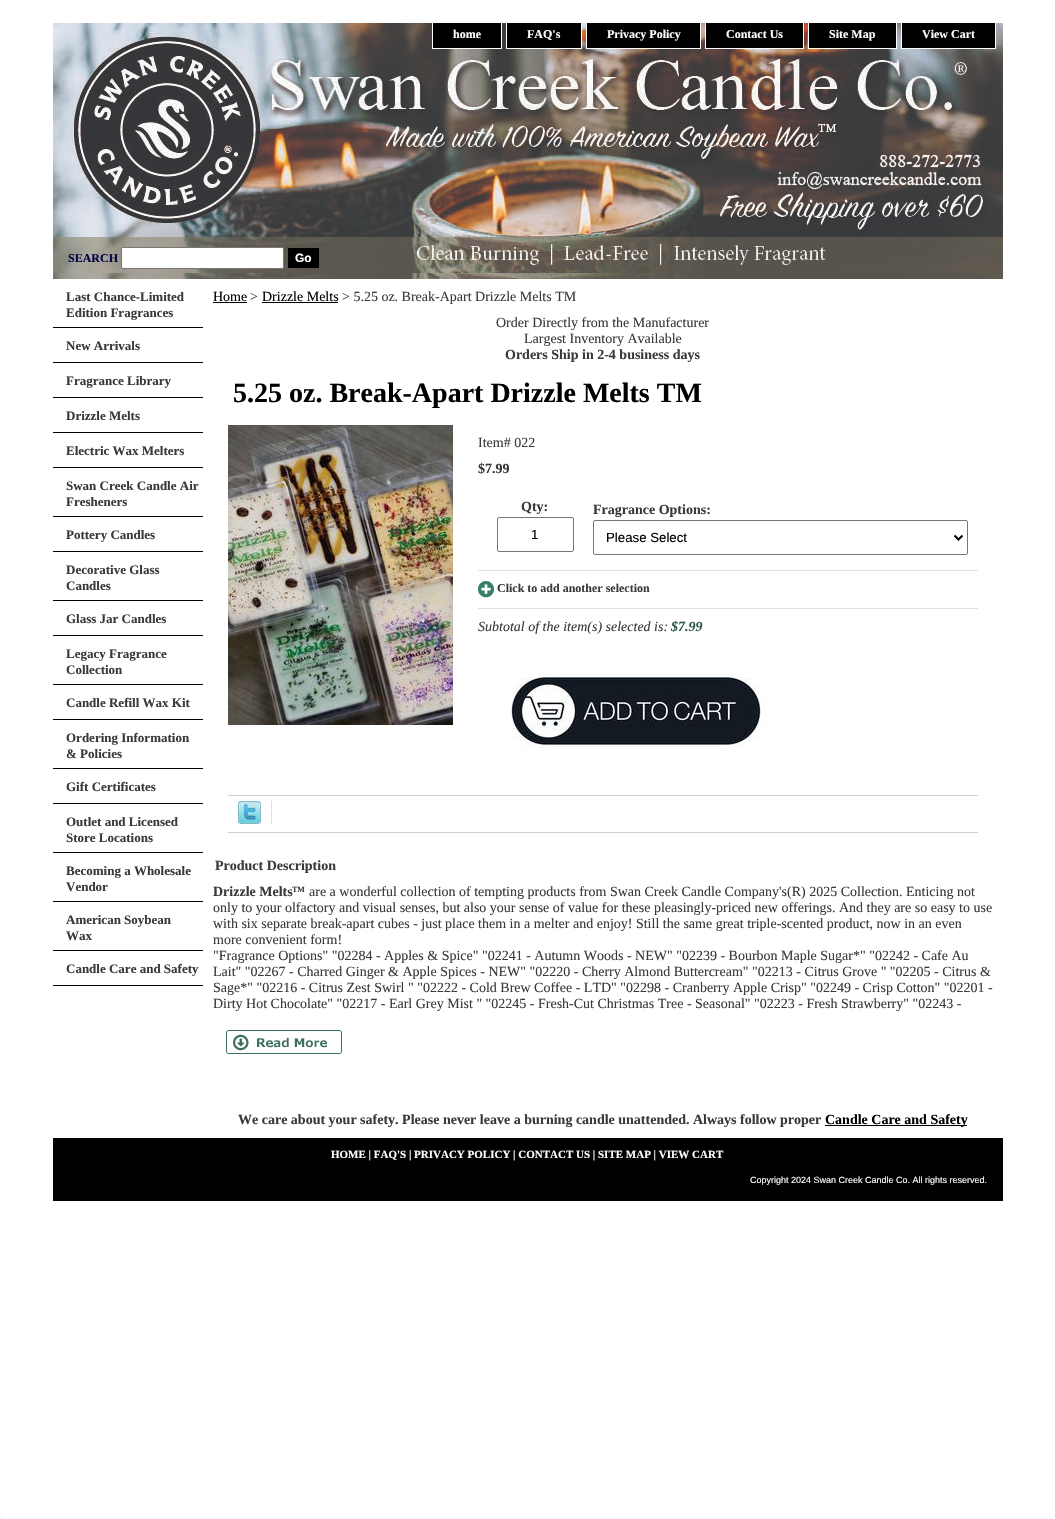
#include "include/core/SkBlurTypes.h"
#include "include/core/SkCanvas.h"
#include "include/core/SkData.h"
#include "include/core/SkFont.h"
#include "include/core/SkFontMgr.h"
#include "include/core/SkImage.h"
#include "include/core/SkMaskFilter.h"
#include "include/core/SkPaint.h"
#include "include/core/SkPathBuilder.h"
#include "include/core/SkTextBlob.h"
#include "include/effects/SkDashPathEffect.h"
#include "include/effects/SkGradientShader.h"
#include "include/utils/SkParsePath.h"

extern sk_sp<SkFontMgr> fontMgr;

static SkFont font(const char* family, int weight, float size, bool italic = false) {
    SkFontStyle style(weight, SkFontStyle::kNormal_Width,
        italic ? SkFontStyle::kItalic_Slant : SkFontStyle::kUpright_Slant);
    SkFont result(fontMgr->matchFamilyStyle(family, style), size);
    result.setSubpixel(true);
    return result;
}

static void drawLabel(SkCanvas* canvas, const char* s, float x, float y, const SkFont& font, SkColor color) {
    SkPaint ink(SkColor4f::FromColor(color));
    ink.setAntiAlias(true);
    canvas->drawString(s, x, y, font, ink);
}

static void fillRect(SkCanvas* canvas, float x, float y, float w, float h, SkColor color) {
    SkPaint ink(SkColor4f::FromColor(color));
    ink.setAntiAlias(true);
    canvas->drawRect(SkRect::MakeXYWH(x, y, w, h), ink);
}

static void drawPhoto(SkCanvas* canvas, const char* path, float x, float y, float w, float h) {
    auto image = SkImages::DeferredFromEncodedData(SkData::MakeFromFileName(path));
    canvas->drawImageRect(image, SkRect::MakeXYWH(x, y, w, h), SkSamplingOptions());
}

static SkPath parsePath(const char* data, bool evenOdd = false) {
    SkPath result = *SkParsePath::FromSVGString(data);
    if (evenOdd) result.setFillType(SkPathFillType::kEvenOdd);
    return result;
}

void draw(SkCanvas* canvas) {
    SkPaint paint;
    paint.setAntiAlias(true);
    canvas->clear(0xFFFFFFFF);
    drawPhoto(canvas, "assets/img1.png", 53, 23, 950, 214);
    fillRect(canvas, 433, 23, 68, 25, 0xFF000000);
    fillRect(canvas, 501, 23, 1, 26, 0xFFFFFFFF);
    fillRect(canvas, 432, 48, 70, 1, 0xFFFFFFFF);
    fillRect(canvas, 432, 23, 1, 26, 0xFFFFFFFF);
    SkFont font1 = font("Liberation Serif", 700, 12);
    drawLabel(canvas, "home", 453, 38, font1, 0xFFFFFFFF);
    fillRect(canvas, 507, 23, 74, 25, 0xFF000000);
    fillRect(canvas, 581, 23, 1, 26, 0xFFFFFFFF);
    fillRect(canvas, 506, 48, 76, 1, 0xFFFFFFFF);
    fillRect(canvas, 506, 23, 1, 26, 0xFFFFFFFF);
    drawLabel(canvas, "FAQ's", 527, 38, font1, 0xFFFFFFFF);
    fillRect(canvas, 587, 23, 113, 25, 0xFF000000);
    fillRect(canvas, 700, 23, 1, 26, 0xFFFFFFFF);
    fillRect(canvas, 586, 48, 115, 1, 0xFFFFFFFF);
    fillRect(canvas, 586, 23, 1, 26, 0xFFFFFFFF);
    drawLabel(canvas, "Privacy Policy", 607, 38, font1, 0xFFFFFFFF);
    fillRect(canvas, 706, 23, 97, 25, 0xFF000000);
    fillRect(canvas, 803, 23, 1, 26, 0xFFFFFFFF);
    fillRect(canvas, 705, 48, 99, 1, 0xFFFFFFFF);
    fillRect(canvas, 705, 23, 1, 26, 0xFFFFFFFF);
    drawLabel(canvas, "Contact Us", 726, 38, font1, 0xFFFFFFFF);
    fillRect(canvas, 809, 23, 87, 25, 0xFF000000);
    fillRect(canvas, 896, 23, 1, 26, 0xFFFFFFFF);
    fillRect(canvas, 808, 48, 89, 1, 0xFFFFFFFF);
    fillRect(canvas, 808, 23, 1, 26, 0xFFFFFFFF);
    drawLabel(canvas, "Site Map", 829, 38, font1, 0xFFFFFFFF);
    fillRect(canvas, 902, 23, 93, 25, 0xFF000000);
    fillRect(canvas, 995, 23, 1, 26, 0xFFFFFFFF);
    fillRect(canvas, 901, 48, 95, 1, 0xFFFFFFFF);
    fillRect(canvas, 901, 23, 1, 26, 0xFFFFFFFF);
    drawLabel(canvas, "View Cart", 922, 38, font1, 0xFFFFFFFF);
    drawPhoto(canvas, "assets/img2.png", 53, 237, 950, 42);
    drawLabel(canvas, "SEARCH", 68, 262, font1, 0xFF000246);
    paint.setColor(0xFFFFFFFF);
    canvas->drawRoundRect(SkRect::MakeXYWH(121.5f, 247.5f, 162, 21), 1.5f, 1.5f, paint);
    paint.setStroke(true);
    paint.setStrokeWidth(1);
    paint.setColor(0xFF767676);
    canvas->drawRoundRect(SkRect::MakeXYWH(121.5f, 247.5f, 162, 21), 1.5f, 1.5f, paint);
    fillRect(canvas, 288, 248, 31, 20, 0xFF000000);
    SkFont font2 = font("Liberation Sans", 700, 12);
    drawLabel(canvas, "Go", 295, 262, font2, 0xFFFFFFFF);
    fillRect(canvas, 53, 327, 150, 1, 0xFF000000);
    SkFont font3 = font("Liberation Serif", 700, 13);
    drawLabel(canvas, "Last Chance-Limited", 66, 301, font3, 0xFF393939);
    drawLabel(canvas, "Edition Fragrances", 66, 317, font3, 0xFF393939);
    fillRect(canvas, 53, 362, 150, 1, 0xFF000000);
    drawLabel(canvas, "New Arrivals", 66, 350, font3, 0xFF393939);
    fillRect(canvas, 53, 397, 150, 1, 0xFF000000);
    drawLabel(canvas, "Fragrance Library", 66, 385, font3, 0xFF393939);
    fillRect(canvas, 53, 432, 150, 1, 0xFF000000);
    drawLabel(canvas, "Drizzle Melts", 66, 420, font3, 0xFF393939);
    fillRect(canvas, 53, 467, 150, 1, 0xFF000000);
    drawLabel(canvas, "Electric Wax Melters", 66, 455, font3, 0xFF393939);
    fillRect(canvas, 53, 516, 150, 1, 0xFF000000);
    drawLabel(canvas, "Swan Creek Candle Air", 66, 490, font3, 0xFF393939);
    drawLabel(canvas, "Fresheners", 66, 506, font3, 0xFF393939);
    fillRect(canvas, 53, 551, 150, 1, 0xFF000000);
    drawLabel(canvas, "Pottery Candles", 66, 539, font3, 0xFF393939);
    fillRect(canvas, 53, 600, 150, 1, 0xFF000000);
    drawLabel(canvas, "Decorative Glass", 66, 574, font3, 0xFF393939);
    drawLabel(canvas, "Candles", 66, 590, font3, 0xFF393939);
    fillRect(canvas, 53, 635, 150, 1, 0xFF000000);
    drawLabel(canvas, "Glass Jar Candles", 66, 623, font3, 0xFF393939);
    fillRect(canvas, 53, 684, 150, 1, 0xFF000000);
    drawLabel(canvas, "Legacy Fragrance", 66, 658, font3, 0xFF393939);
    drawLabel(canvas, "Collection", 66, 674, font3, 0xFF393939);
    fillRect(canvas, 53, 719, 150, 1, 0xFF000000);
    drawLabel(canvas, "Candle Refill Wax Kit", 66, 707, font3, 0xFF393939);
    fillRect(canvas, 53, 768, 150, 1, 0xFF000000);
    drawLabel(canvas, "Ordering Information", 66, 742, font3, 0xFF393939);
    drawLabel(canvas, "& Policies", 66, 758, font3, 0xFF393939);
    fillRect(canvas, 53, 803, 150, 1, 0xFF000000);
    drawLabel(canvas, "Gift Certificates", 66, 791, font3, 0xFF393939);
    fillRect(canvas, 53, 852, 150, 1, 0xFF000000);
    drawLabel(canvas, "Outlet and Licensed", 66, 826, font3, 0xFF393939);
    drawLabel(canvas, "Store Locations", 66, 842, font3, 0xFF393939);
    fillRect(canvas, 53, 901, 150, 1, 0xFF000000);
    drawLabel(canvas, "Becoming a Wholesale", 66, 875, font3, 0xFF393939);
    drawLabel(canvas, "Vendor", 66, 891, font3, 0xFF393939);
    fillRect(canvas, 53, 950, 150, 1, 0xFF000000);
    drawLabel(canvas, "American Soybean", 66, 924, font3, 0xFF393939);
    drawLabel(canvas, "Wax", 66, 940, font3, 0xFF393939);
    fillRect(canvas, 53, 985, 150, 1, 0xFF000000);
    drawLabel(canvas, "Candle Care and Safety", 66, 973, font3, 0xFF393939);
    SkFont font4 = font("Liberation Serif", 400, 14);
    drawLabel(canvas, "Home", 213, 301, font4, 0xFF000000);
    fillRect(canvas, 213, 302, 34, 1, 0xFF000000);
    drawLabel(canvas, ">", 250, 301, font4, 0xFF393939);
    drawLabel(canvas, "Drizzle Melts", 262, 301, font4, 0xFF000000);
    fillRect(canvas, 262, 302, 76, 1, 0xFF000000);
    drawLabel(canvas, "> 5.25 oz. Break-Apart Drizzle Melts TM", 342, 301, font4, 0xFF393939);
    drawLabel(canvas, "Order Directly from the Manufacturer", 496, 327, font4, 0xFF393939);
    drawLabel(canvas, "Largest Inventory Available", 524, 343, font4, 0xFF393939);
    SkFont font5 = font("Liberation Serif", 700, 14);
    drawLabel(canvas, "Orders Ship in 2-4 business days", 505, 359, font5, 0xFF393939);
    SkFont font6 = font("Liberation Serif", 700, 28);
    drawLabel(canvas, "5.25 oz. Break-Apart Drizzle Melts TM", 233, 402, font6, 0xFF000000);
    drawPhoto(canvas, "assets/img3.png", 228, 425, 225, 300);
    drawLabel(canvas, "Item# 022", 478, 447, font4, 0xFF393939);
    drawLabel(canvas, "$7.99", 478, 473, font5, 0xFF393939);
    fillRect(canvas, 478, 570, 500, 1, 0xFFE0E0E0);
    drawLabel(canvas, "Qty:", 521, 511, font5, 0xFF393939);
    canvas->drawRoundRect(SkRect::MakeXYWH(497.5f, 517.5f, 76, 34), 1.5f, 1.5f, paint);
    SkFont font7 = font("Liberation Sans", 400, 13.25f);
    drawLabel(canvas, "1", 531, 539, font7, 0xFF000000);
    drawLabel(canvas, "Fragrance Options:", 593, 514, font5, 0xFF393939);
    canvas->drawRoundRect(SkRect::MakeXYWH(593.5f, 520.5f, 374, 34), 1.5f, 1.5f, paint);
    paint.setStrokeWidth(2);
    paint.setColor(0xFF000000);
    canvas->drawPath(parsePath("M954.5 535.5L958.5 539.5L962.5 535.5"), paint);
    drawLabel(canvas, "Please Select", 606, 542, font7, 0xFF000000);
    drawPhoto(canvas, "assets/img4.png", 478, 581, 16, 17);
    drawLabel(canvas, "Click to add another selection", 497, 592, font1, 0xFF393939);
    fillRect(canvas, 478, 608, 500, 1, 0xFFE0E0E0);
    SkFont font8 = font("Liberation Serif", 400, 14, true);
    drawLabel(canvas, "Subtotal of the item(s) selected is:", 478, 631, font8, 0xFF393939);
    SkFont font9 = font("Liberation Serif", 700, 14, true);
    drawLabel(canvas, "$7.99", 671, 631, font9, 0xFF2B5949);
    drawPhoto(canvas, "assets/img5.png", 510, 677, 256, 72);
    fillRect(canvas, 228, 795, 750, 1, 0xFFCFCECE);
    drawPhoto(canvas, "assets/img6.png", 238, 801, 23, 23);
    drawPhoto(canvas, "assets/img7.png", 271, 801, 1, 23);
    fillRect(canvas, 228, 832, 750, 1, 0xFFCFCECE);
    drawLabel(canvas, "Product Description", 215, 870, font5, 0xFF393939);
    drawLabel(canvas, "Drizzle Melts", 213, 896, font5, 0xFF393939);
    SkFont font10 = font("Liberation Serif", 700, 8);
    drawLabel(canvas, "TM", 292, 892, font10, 0xFF393939);
    drawLabel(canvas, "are a wonderful collection of tempting products from Swan Creek Candle Company's(R) 2025 Collection. Enticing not", 309, 896, font4, 0xFF393939);
    drawLabel(canvas, "only to your olfactory and visual senses, but also your sense of value for these pleasingly-priced new offerings. And they are so easy to use", 213, 912, font4, 0xFF393939);
    drawLabel(canvas, "with six separate break-apart cubes - just place them in a melter and enjoy! Still the same great triple-scented product, now in an even", 213, 928, font4, 0xFF393939);
    drawLabel(canvas, "more convenient form!", 213, 944, font4, 0xFF393939);
    drawLabel(canvas, "\"Fragrance Options\" \"02284 - Apples & Spice\" \"02241 - Autumn Woods - NEW\" \"02239 - Bourbon Maple Sugar*\" \"02242 - Cafe Au", 213, 960, font4, 0xFF393939);
    drawLabel(canvas, "Lait\" \"02267 - Charred Ginger & Apple Spices - NEW\" \"02220 - Cherry Almond Buttercream\" \"02213 - Citrus Grove \" \"02205 - Citrus &", 213, 976, font4, 0xFF393939);
    drawLabel(canvas, "Sage*\" \"02216 - Citrus Zest Swirl \" \"02222 - Cold Brew Coffee - LTD\" \"02298 - Cranberry Apple Crisp\" \"02249 - Crisp Cotton\" \"02201 -", 213, 992, font4, 0xFF393939);
    drawLabel(canvas, "Dirty Hot Chocolate\" \"02217 - Earl Grey Mist \" \"02245 - Fresh-Cut Christmas Tree - Seasonal\" \"02223 - Fresh Strawberry\" \"02243 -", 213, 1008, font4, 0xFF393939);
    drawPhoto(canvas, "assets/img8.png", 226, 1030, 116, 24);
    drawLabel(canvas, "We care about your safety. Please never leave a burning candle unattended. Always follow proper", 238, 1124, font5, 0xFF393939);
    fillRect(canvas, 825, 1125, 142, 1, 0xFF000000);
    drawLabel(canvas, "Candle Care and Safety", 825, 1124, font5, 0xFF000000);
    fillRect(canvas, 53, 1138, 950, 63, 0xFF000000);
    SkFont font11 = font("Liberation Serif", 700, 11);
    drawLabel(canvas, "HOME | FAQ'S | PRIVACY POLICY | CONTACT US | SITE MAP | VIEW CART", 331, 1158, font11, 0xFFFFFFFF);
    SkFont font12 = font("Liberation Sans", 400, 9);
    drawLabel(canvas, "Copyright 2024 Swan Creek Candle Co. All rights reserved.", 750, 1183, font12, 0xFFFFFFFF);
    fillRect(canvas, 0, 1517, 2, 2, 0xFFF5F5F5);
}
